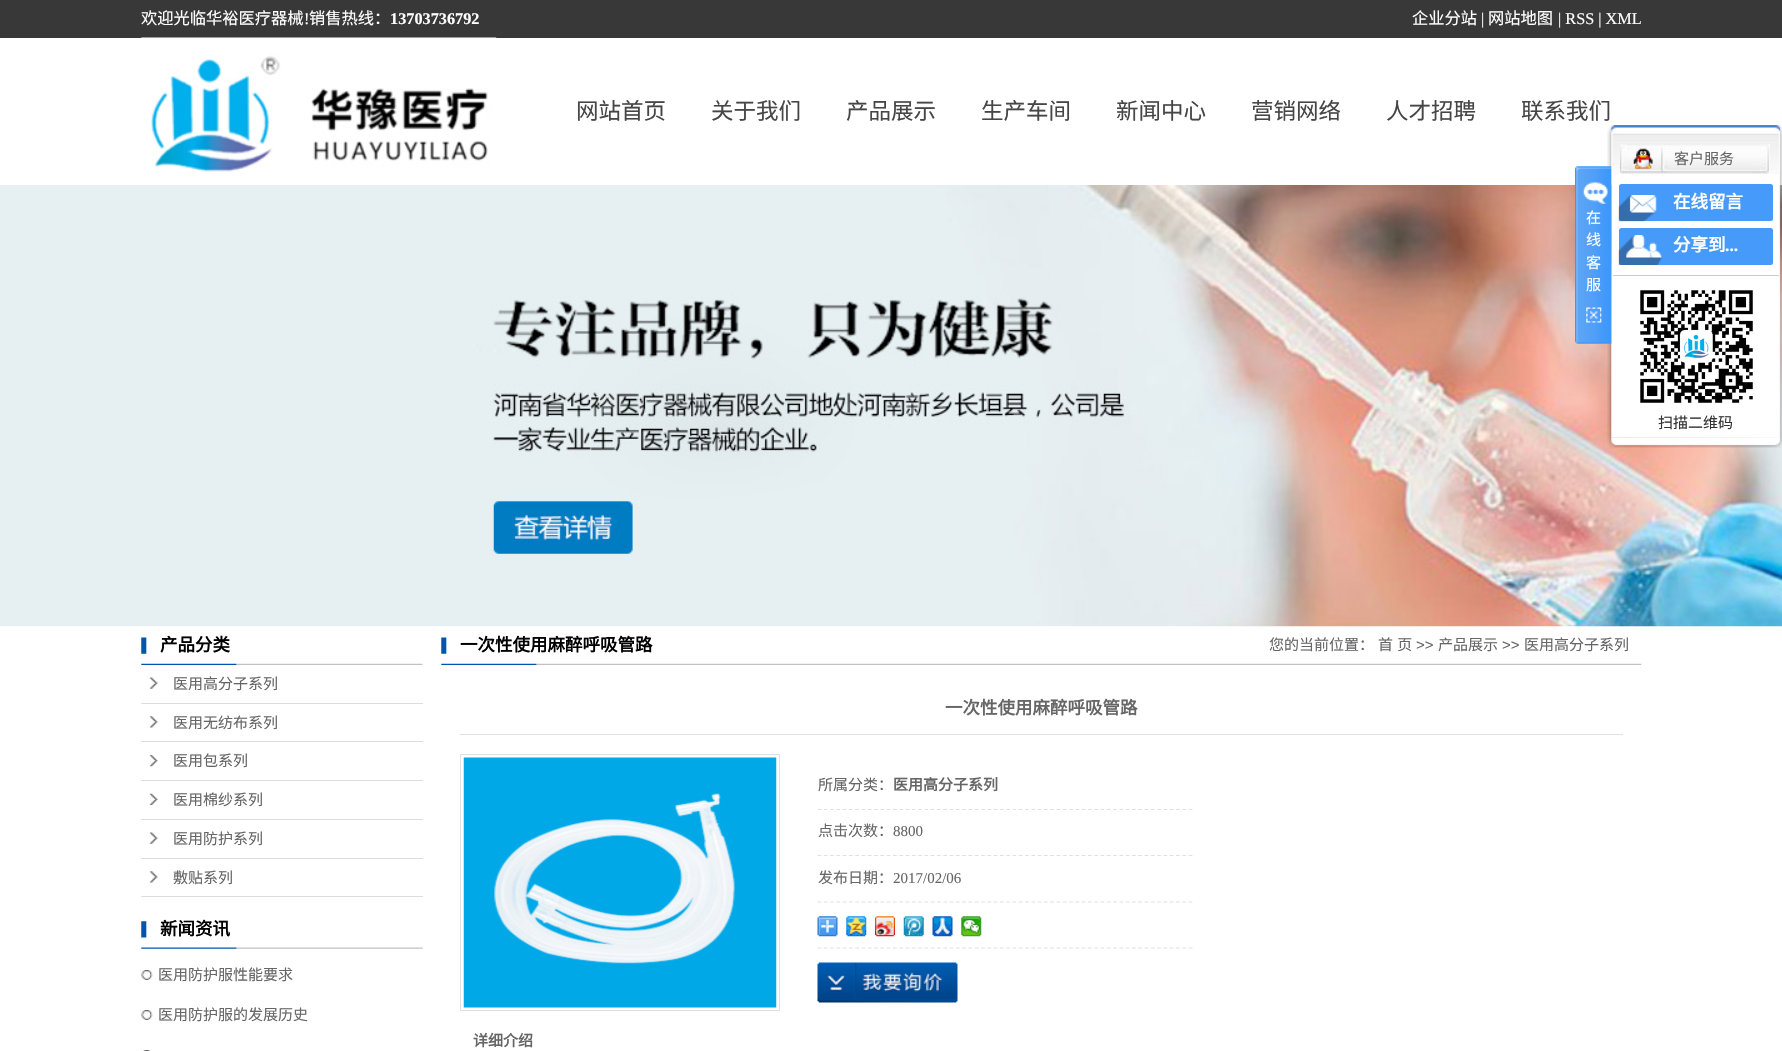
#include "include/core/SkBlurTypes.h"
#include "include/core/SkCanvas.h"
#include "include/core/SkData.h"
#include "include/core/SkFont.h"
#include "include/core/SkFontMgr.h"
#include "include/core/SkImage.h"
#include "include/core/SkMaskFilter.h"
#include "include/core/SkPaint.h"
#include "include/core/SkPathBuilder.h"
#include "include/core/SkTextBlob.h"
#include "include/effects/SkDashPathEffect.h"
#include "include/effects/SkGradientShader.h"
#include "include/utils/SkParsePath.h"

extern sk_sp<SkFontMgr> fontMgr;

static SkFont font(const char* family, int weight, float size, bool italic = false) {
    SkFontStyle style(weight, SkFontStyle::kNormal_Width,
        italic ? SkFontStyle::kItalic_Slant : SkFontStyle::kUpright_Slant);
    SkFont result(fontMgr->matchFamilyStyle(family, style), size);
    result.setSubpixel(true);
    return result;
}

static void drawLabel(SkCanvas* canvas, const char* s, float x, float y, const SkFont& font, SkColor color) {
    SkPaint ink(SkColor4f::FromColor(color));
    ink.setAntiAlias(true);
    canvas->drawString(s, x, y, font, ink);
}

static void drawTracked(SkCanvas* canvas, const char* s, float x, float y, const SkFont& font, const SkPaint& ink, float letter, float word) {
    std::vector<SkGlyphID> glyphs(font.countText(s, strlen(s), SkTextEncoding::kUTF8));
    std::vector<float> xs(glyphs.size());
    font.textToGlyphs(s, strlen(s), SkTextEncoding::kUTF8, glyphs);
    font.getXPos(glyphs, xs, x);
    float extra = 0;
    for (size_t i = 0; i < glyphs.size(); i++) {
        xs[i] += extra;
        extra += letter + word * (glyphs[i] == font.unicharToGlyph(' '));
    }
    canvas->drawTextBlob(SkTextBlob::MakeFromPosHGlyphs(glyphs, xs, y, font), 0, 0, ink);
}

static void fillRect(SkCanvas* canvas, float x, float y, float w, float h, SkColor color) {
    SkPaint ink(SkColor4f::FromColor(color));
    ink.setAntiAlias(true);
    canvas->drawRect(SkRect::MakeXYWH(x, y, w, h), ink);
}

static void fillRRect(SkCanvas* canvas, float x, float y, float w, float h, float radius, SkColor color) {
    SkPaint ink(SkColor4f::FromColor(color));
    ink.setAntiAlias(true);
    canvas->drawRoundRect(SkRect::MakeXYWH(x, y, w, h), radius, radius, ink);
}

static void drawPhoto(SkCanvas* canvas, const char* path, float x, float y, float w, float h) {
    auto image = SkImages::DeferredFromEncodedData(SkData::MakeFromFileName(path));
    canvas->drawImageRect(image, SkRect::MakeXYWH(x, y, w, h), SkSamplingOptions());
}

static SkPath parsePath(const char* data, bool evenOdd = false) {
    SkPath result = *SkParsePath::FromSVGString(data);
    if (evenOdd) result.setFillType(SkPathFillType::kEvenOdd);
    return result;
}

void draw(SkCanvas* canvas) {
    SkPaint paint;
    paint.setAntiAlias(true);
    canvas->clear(0xFFFFFFFF);
    fillRect(canvas, 0, 0, 1782, 38, 0xFF383838);
    SkFont font1 = font("Noto Sans CJK SC", 400, 16.25f);
    drawLabel(canvas, "欢迎光临华裕医疗器械", 141, 24, font1, 0xFFFFFFFF);
    SkFont font2 = font("Liberation Serif", 400, 16.25f);
    drawLabel(canvas, "!", 304, 24, font2, 0xFFFFFFFF);
    drawLabel(canvas, "销售热线：", 309, 24, font1, 0xFFFFFFFF);
    SkFont font3 = font("Liberation Serif", 700, 16.25f);
    drawLabel(canvas, "13703736792", 390, 24, font3, 0xFFFFFFFF);
    drawLabel(canvas, "企业分站", 1412, 24, font1, 0xFFFFFFFF);
    drawLabel(canvas, "|", 1481, 24, font2, 0xFFFFFFFF);
    drawLabel(canvas, "网站地图", 1488, 24, font1, 0xFFFFFFFF);
    drawLabel(canvas, "| RSS | XML", 1558, 24, font2, 0xFFFFFFFF);
    drawPhoto(canvas, "assets/img1.png", 141, 37, 356, 135);
    SkFont font4 = font("Noto Sans CJK SC", 400, 22.5f);
    drawLabel(canvas, "网站首页", 576, 119, font4, 0xFF474646);
    drawLabel(canvas, "关于我们", 711, 119, font4, 0xFF474646);
    drawLabel(canvas, "产品展示", 846, 119, font4, 0xFF474646);
    drawLabel(canvas, "生产车间", 981, 119, font4, 0xFF474646);
    drawLabel(canvas, "新闻中心", 1116, 119, font4, 0xFF474646);
    drawLabel(canvas, "营销网络", 1251, 119, font4, 0xFF474646);
    drawLabel(canvas, "人才招聘", 1386, 119, font4, 0xFF474646);
    drawLabel(canvas, "联系我们", 1521, 119, font4, 0xFF474646);
    drawPhoto(canvas, "assets/img4.png", 1607, 125, 175, 9);
    drawPhoto(canvas, "assets/img13.png", 0, 185, 1782, 442);
    drawPhoto(canvas, "assets/img5.png", 1607, 133, 175, 305);
    drawPhoto(canvas, "assets/img2.png", 1575, 166, 37, 178);
    SkFont font5 = font("Noto Sans CJK SC", 400, 15);
    drawLabel(canvas, "在", 1586, 223, font5, 0xFFFFFFFF);
    drawLabel(canvas, "线", 1586, 245, font5, 0xFFFFFFFF);
    drawLabel(canvas, "客", 1586, 268, font5, 0xFFFFFFFF);
    drawLabel(canvas, "服", 1586, 290, font5, 0xFFFFFFFF);
    drawPhoto(canvas, "assets/img3.png", 1586, 307, 16, 16);
    drawPhoto(canvas, "assets/img6.png", 1612, 133, 167, 41);
    drawPhoto(canvas, "assets/img7.png", 1620, 144, 150, 30);
    drawPhoto(canvas, "assets/img8.png", 1633, 148, 20, 21);
    drawLabel(canvas, "客户服务", 1674, 164, font5, 0xFF666666);
    fillRRect(canvas, 1619, 184, 154, 37, 2.5f, 0xFF459AFA);
    drawPhoto(canvas, "assets/img9.png", 1618, 195, 39, 27);
    SkFont font6 = font("Noto Sans CJK SC", 700, 17.5f);
    drawLabel(canvas, "在线留言", 1673, 208, font6, 0xFFFFFFFF);
    fillRRect(canvas, 1619, 228, 154, 37, 2.5f, 0xFF459AFA);
    drawPhoto(canvas, "assets/img10.png", 1618, 235, 44, 30);
    drawLabel(canvas, "分享到", 1673, 251, font6, 0xFFFFFFFF);
    SkFont font7 = font("Liberation Serif", 700, 17.5f);
    drawLabel(canvas, "...", 1725, 251, font7, 0xFFFFFFFF);
    fillRect(canvas, 1613, 275, 166, 1, 0xFFCCCCCC);
    drawPhoto(canvas, "assets/img11.png", 1640, 290, 113, 113);
    drawLabel(canvas, "扫描二维码", 1658, 428, font5, 0xFF333333);
    drawPhoto(canvas, "assets/img12.png", 1607, 437, 175, 11);
    drawPhoto(canvas, "assets/img14.png", 141, 637, 282, 28);
    drawLabel(canvas, "产品分类", 160, 651, font6, 0xFF000000);
    drawPhoto(canvas, "assets/img15.png", 149, 677, 9, 12);
    fillRect(canvas, 141, 703, 282, 1, 0xFFDDDDDD);
    drawLabel(canvas, "医用高分子系列", 173, 689, font5, 0xFF666666);
    drawPhoto(canvas, "assets/img16.png", 149, 716, 9, 12);
    fillRect(canvas, 141, 741, 282, 1, 0xFFDDDDDD);
    drawLabel(canvas, "医用无纺布系列", 173, 728, font5, 0xFF666666);
    drawPhoto(canvas, "assets/img17.png", 149, 754, 9, 13);
    fillRect(canvas, 141, 780, 282, 1, 0xFFDDDDDD);
    drawLabel(canvas, "医用包系列", 173, 766, font5, 0xFF666666);
    drawPhoto(canvas, "assets/img18.png", 149, 793, 9, 12);
    fillRect(canvas, 141, 819, 282, 1, 0xFFDDDDDD);
    drawLabel(canvas, "医用棉纱系列", 173, 805, font5, 0xFF666666);
    drawPhoto(canvas, "assets/img15.png", 149, 832, 9, 12);
    fillRect(canvas, 141, 858, 282, 1, 0xFFDDDDDD);
    drawLabel(canvas, "医用防护系列", 173, 844, font5, 0xFF666666);
    drawPhoto(canvas, "assets/img16.png", 149, 871, 9, 12);
    fillRect(canvas, 141, 896, 282, 1, 0xFFDDDDDD);
    drawLabel(canvas, "敷贴系列", 173, 883, font5, 0xFF666666);
    drawPhoto(canvas, "assets/img19.png", 141, 921, 282, 28);
    drawLabel(canvas, "新闻资讯", 160, 935, font6, 0xFF000000);
    drawPhoto(canvas, "assets/img20.png", 141, 970, 12, 10);
    drawLabel(canvas, "医用防护服性能要求", 158, 980, font5, 0xFF666666);
    drawPhoto(canvas, "assets/img20.png", 141, 1010, 12, 10);
    drawLabel(canvas, "医用防护服的发展历史", 158, 1020, font5, 0xFF666666);
    drawPhoto(canvas, "assets/img21.png", 143, 1050, 8, 1);
    drawPhoto(canvas, "assets/img22.png", 441, 637, 1201, 28);
    drawLabel(canvas, "一次性使用麻醉呼吸管路", 460, 651, font6, 0xFF000000);
    drawLabel(canvas, "您的当前位置：", 1269, 650, font5, 0xFF666666);
    paint.setColor(0xFF666666);
    drawTracked(canvas, "首 页", 1378, 650, font5, paint, 0, 1);
    SkFont font8 = font("Liberation Sans", 400, 15);
    drawLabel(canvas, ">>", 1416, 650, font8, 0xFF666666);
    drawLabel(canvas, "产品展示", 1438, 650, font5, 0xFF666666);
    drawLabel(canvas, ">>", 1502, 650, font8, 0xFF666666);
    drawLabel(canvas, "医用高分子系列", 1524, 650, font5, 0xFF666666);
    fillRect(canvas, 460, 734, 1163, 1, 0xFFE0E1DC);
    drawLabel(canvas, "一次性使用麻醉呼吸管路", 945, 714, font6, 0xFF666666);
    paint.setStroke(true);
    paint.setStrokeWidth(1);
    paint.setColor(0xFFE0E1DC);
    canvas->drawRect(SkRect::MakeXYWH(460.5f, 754.5f, 319, 256), paint);
    drawPhoto(canvas, "assets/img23.png", 463, 757, 314, 251);
    paint.setStrokeWidth(1.2f);
    paint.setPathEffect(SkDashPathEffect::Make({{3.75f, 2.54f}}, 0));
    canvas->drawPath(parsePath("M817.5 809.5H1192.5"), paint);
    paint.setPathEffect(nullptr);
    drawLabel(canvas, "所属分类：", 818, 790, font5, 0xFF666666);
    SkFont font9 = font("Noto Sans CJK SC", 700, 15);
    drawLabel(canvas, "医用高分子系列", 893, 790, font9, 0xFF666666);
    paint.setPathEffect(SkDashPathEffect::Make({{3.75f, 2.54f}}, 0));
    canvas->drawPath(parsePath("M817.5 855.5H1192.5"), paint);
    paint.setPathEffect(nullptr);
    drawLabel(canvas, "点击次数：", 818, 836, font5, 0xFF666666);
    SkFont font10 = font("Liberation Serif", 400, 15);
    drawLabel(canvas, "8800", 893, 836, font10, 0xFF666666);
    paint.setPathEffect(SkDashPathEffect::Make({{3.75f, 2.54f}}, 0));
    canvas->drawPath(parsePath("M817.5 902H1192.5"), paint);
    paint.setPathEffect(nullptr);
    drawLabel(canvas, "发布日期：", 818, 883, font5, 0xFF666666);
    drawLabel(canvas, "2017/02/06", 893, 883, font10, 0xFF666666);
    paint.setPathEffect(SkDashPathEffect::Make({{3.75f, 2.54f}}, 0));
    canvas->drawPath(parsePath("M817.5 948H1192.5"), paint);
    paint.setPathEffect(nullptr);
    drawPhoto(canvas, "assets/img24.png", 817, 916, 21, 21);
    drawPhoto(canvas, "assets/img25.png", 846, 916, 21, 21);
    drawPhoto(canvas, "assets/img26.png", 875, 916, 20, 21);
    drawPhoto(canvas, "assets/img27.png", 903, 916, 21, 21);
    drawPhoto(canvas, "assets/img28.png", 932, 916, 21, 21);
    drawPhoto(canvas, "assets/img29.png", 961, 916, 21, 21);
    drawPhoto(canvas, "assets/img30.png", 817, 962, 141, 41);
    drawLabel(canvas, "详细介绍", 473, 1046, font9, 0xFF666666);
}
